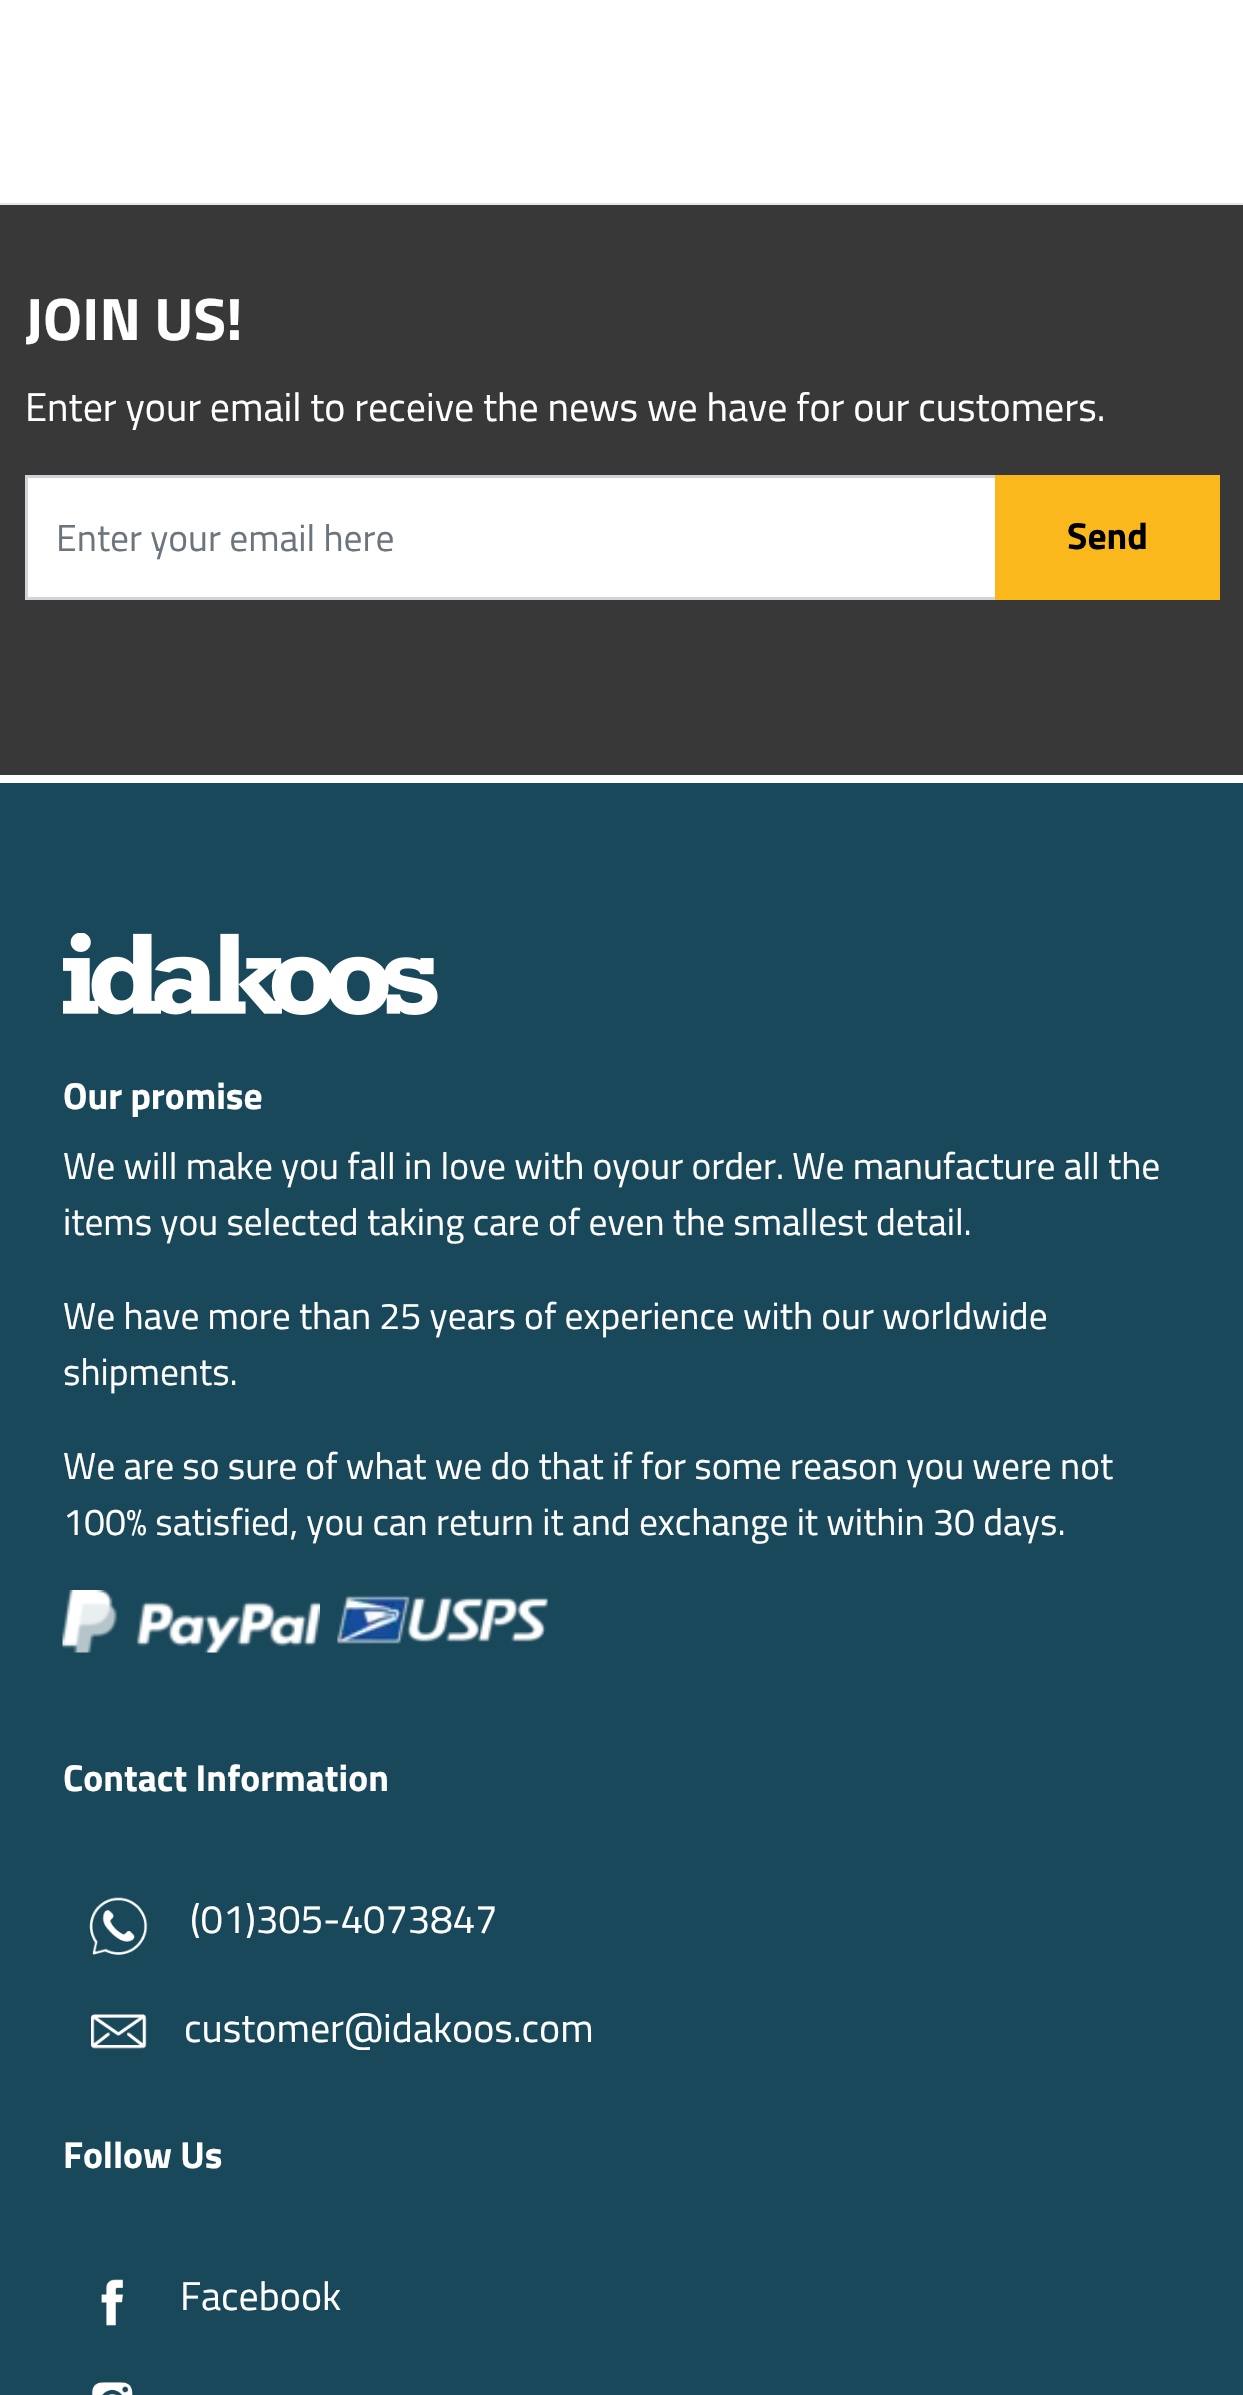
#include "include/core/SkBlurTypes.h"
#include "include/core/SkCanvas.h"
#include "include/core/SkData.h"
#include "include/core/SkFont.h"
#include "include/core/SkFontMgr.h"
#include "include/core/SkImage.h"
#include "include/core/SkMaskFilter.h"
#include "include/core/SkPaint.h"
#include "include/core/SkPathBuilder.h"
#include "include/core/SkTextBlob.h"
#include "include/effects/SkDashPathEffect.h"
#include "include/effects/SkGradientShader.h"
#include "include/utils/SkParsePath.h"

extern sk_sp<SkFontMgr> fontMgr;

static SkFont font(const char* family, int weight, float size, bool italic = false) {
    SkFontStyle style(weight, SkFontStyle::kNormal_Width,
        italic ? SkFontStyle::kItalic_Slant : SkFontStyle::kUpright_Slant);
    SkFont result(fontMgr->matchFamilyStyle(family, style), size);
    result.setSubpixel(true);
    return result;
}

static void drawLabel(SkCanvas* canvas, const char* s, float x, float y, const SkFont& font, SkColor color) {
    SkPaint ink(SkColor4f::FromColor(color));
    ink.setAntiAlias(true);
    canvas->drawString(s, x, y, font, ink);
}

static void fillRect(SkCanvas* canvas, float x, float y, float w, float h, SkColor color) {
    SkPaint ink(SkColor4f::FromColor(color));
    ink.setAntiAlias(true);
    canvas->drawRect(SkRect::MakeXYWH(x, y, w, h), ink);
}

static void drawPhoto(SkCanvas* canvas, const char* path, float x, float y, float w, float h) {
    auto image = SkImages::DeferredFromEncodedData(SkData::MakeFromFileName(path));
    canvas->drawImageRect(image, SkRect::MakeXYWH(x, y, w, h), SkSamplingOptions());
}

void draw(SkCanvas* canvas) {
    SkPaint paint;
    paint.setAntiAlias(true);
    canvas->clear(0xFFFFFFFF);
    fillRect(canvas, 0, 203, 1243, 2, 0xFFE4E4E4);
    fillRect(canvas, 0, 205, 1243, 570, 0xFF383838);
    SkFont font1 = font("Titillium Web", 700, 60);
    drawLabel(canvas, "JOIN US!", 25, 340, font1, 0xFFFFFFFF);
    SkFont font2 = font("Titillium Web", 400, 40);
    drawLabel(canvas, "Enter your email to receive the news we have for our customers.", 25, 421, font2, 0xFFFFFFFF);
    paint.setColor(0xFFFFFFFF);
    canvas->drawRect(SkRect::MakeXYWH(26.5f, 476.5f, 970, 122), paint);
    paint.setStroke(true);
    paint.setStrokeWidth(3);
    paint.setColor(0xFFCED4DA);
    canvas->drawRect(SkRect::MakeXYWH(26.5f, 476.5f, 970, 122), paint);
    SkFont font3 = font("Titillium Web", 400, 37.5f);
    drawLabel(canvas, "Enter your email here", 56, 551, font3, 0xFF6C757D);
    fillRect(canvas, 995, 475, 225, 125, 0xFFFAB81C);
    SkFont font4 = font("Titillium Web", 700, 37.5f);
    drawLabel(canvas, "Send", 1067, 549, font4, 0xFF000000);
    fillRect(canvas, 0, 783, 1243, 1612, 0xFF19485A);
    drawPhoto(canvas, "assets/img1.png", 63, 933, 375, 82);
    drawLabel(canvas, "Our promise", 63, 1109, font4, 0xFFFFFFFF);
    drawLabel(canvas, "We will make you fall in love with oyour order. We manufacture all the", 63, 1179, font3, 0xFFFFFFFF);
    drawLabel(canvas, "items you selected taking care of even the smallest detail.", 63, 1235, font3, 0xFFFFFFFF);
    drawLabel(canvas, "We have more than 25 years of experience with our worldwide", 63, 1329, font3, 0xFFFFFFFF);
    drawLabel(canvas, "shipments.", 63, 1385, font3, 0xFFFFFFFF);
    drawLabel(canvas, "We are so sure of what we do that if for some reason you were not", 63, 1479, font3, 0xFFFFFFFF);
    drawLabel(canvas, "100% satisfied, you can return it and exchange it within 30 days.", 63, 1535, font3, 0xFFFFFFFF);
    drawPhoto(canvas, "assets/img2.png", 62, 1590, 258, 63);
    drawPhoto(canvas, "assets/img3.png", 337, 1595, 211, 49);
    drawLabel(canvas, "Contact Information", 63, 1791, font4, 0xFFFFFFFF);
    drawPhoto(canvas, "assets/img4.png", 89, 1897, 59, 58);
    drawLabel(canvas, "(01)305-4073847", 190, 1933, font2, 0xFFFFFFFF);
    drawPhoto(canvas, "assets/img5.png", 91, 2014, 56, 35);
    drawLabel(canvas, "customer@idakoos.com", 184, 2042, font2, 0xFFFFFFFF);
    drawLabel(canvas, "Follow Us", 63, 2168, font4, 0xFFFFFFFF);
    drawPhoto(canvas, "assets/img6.png", 101, 2279, 22, 47);
    drawLabel(canvas, "Facebook", 180, 2310, font2, 0xFFFFFFFF);
    drawPhoto(canvas, "assets/img7.png", 91, 2382, 42, 13);
}
